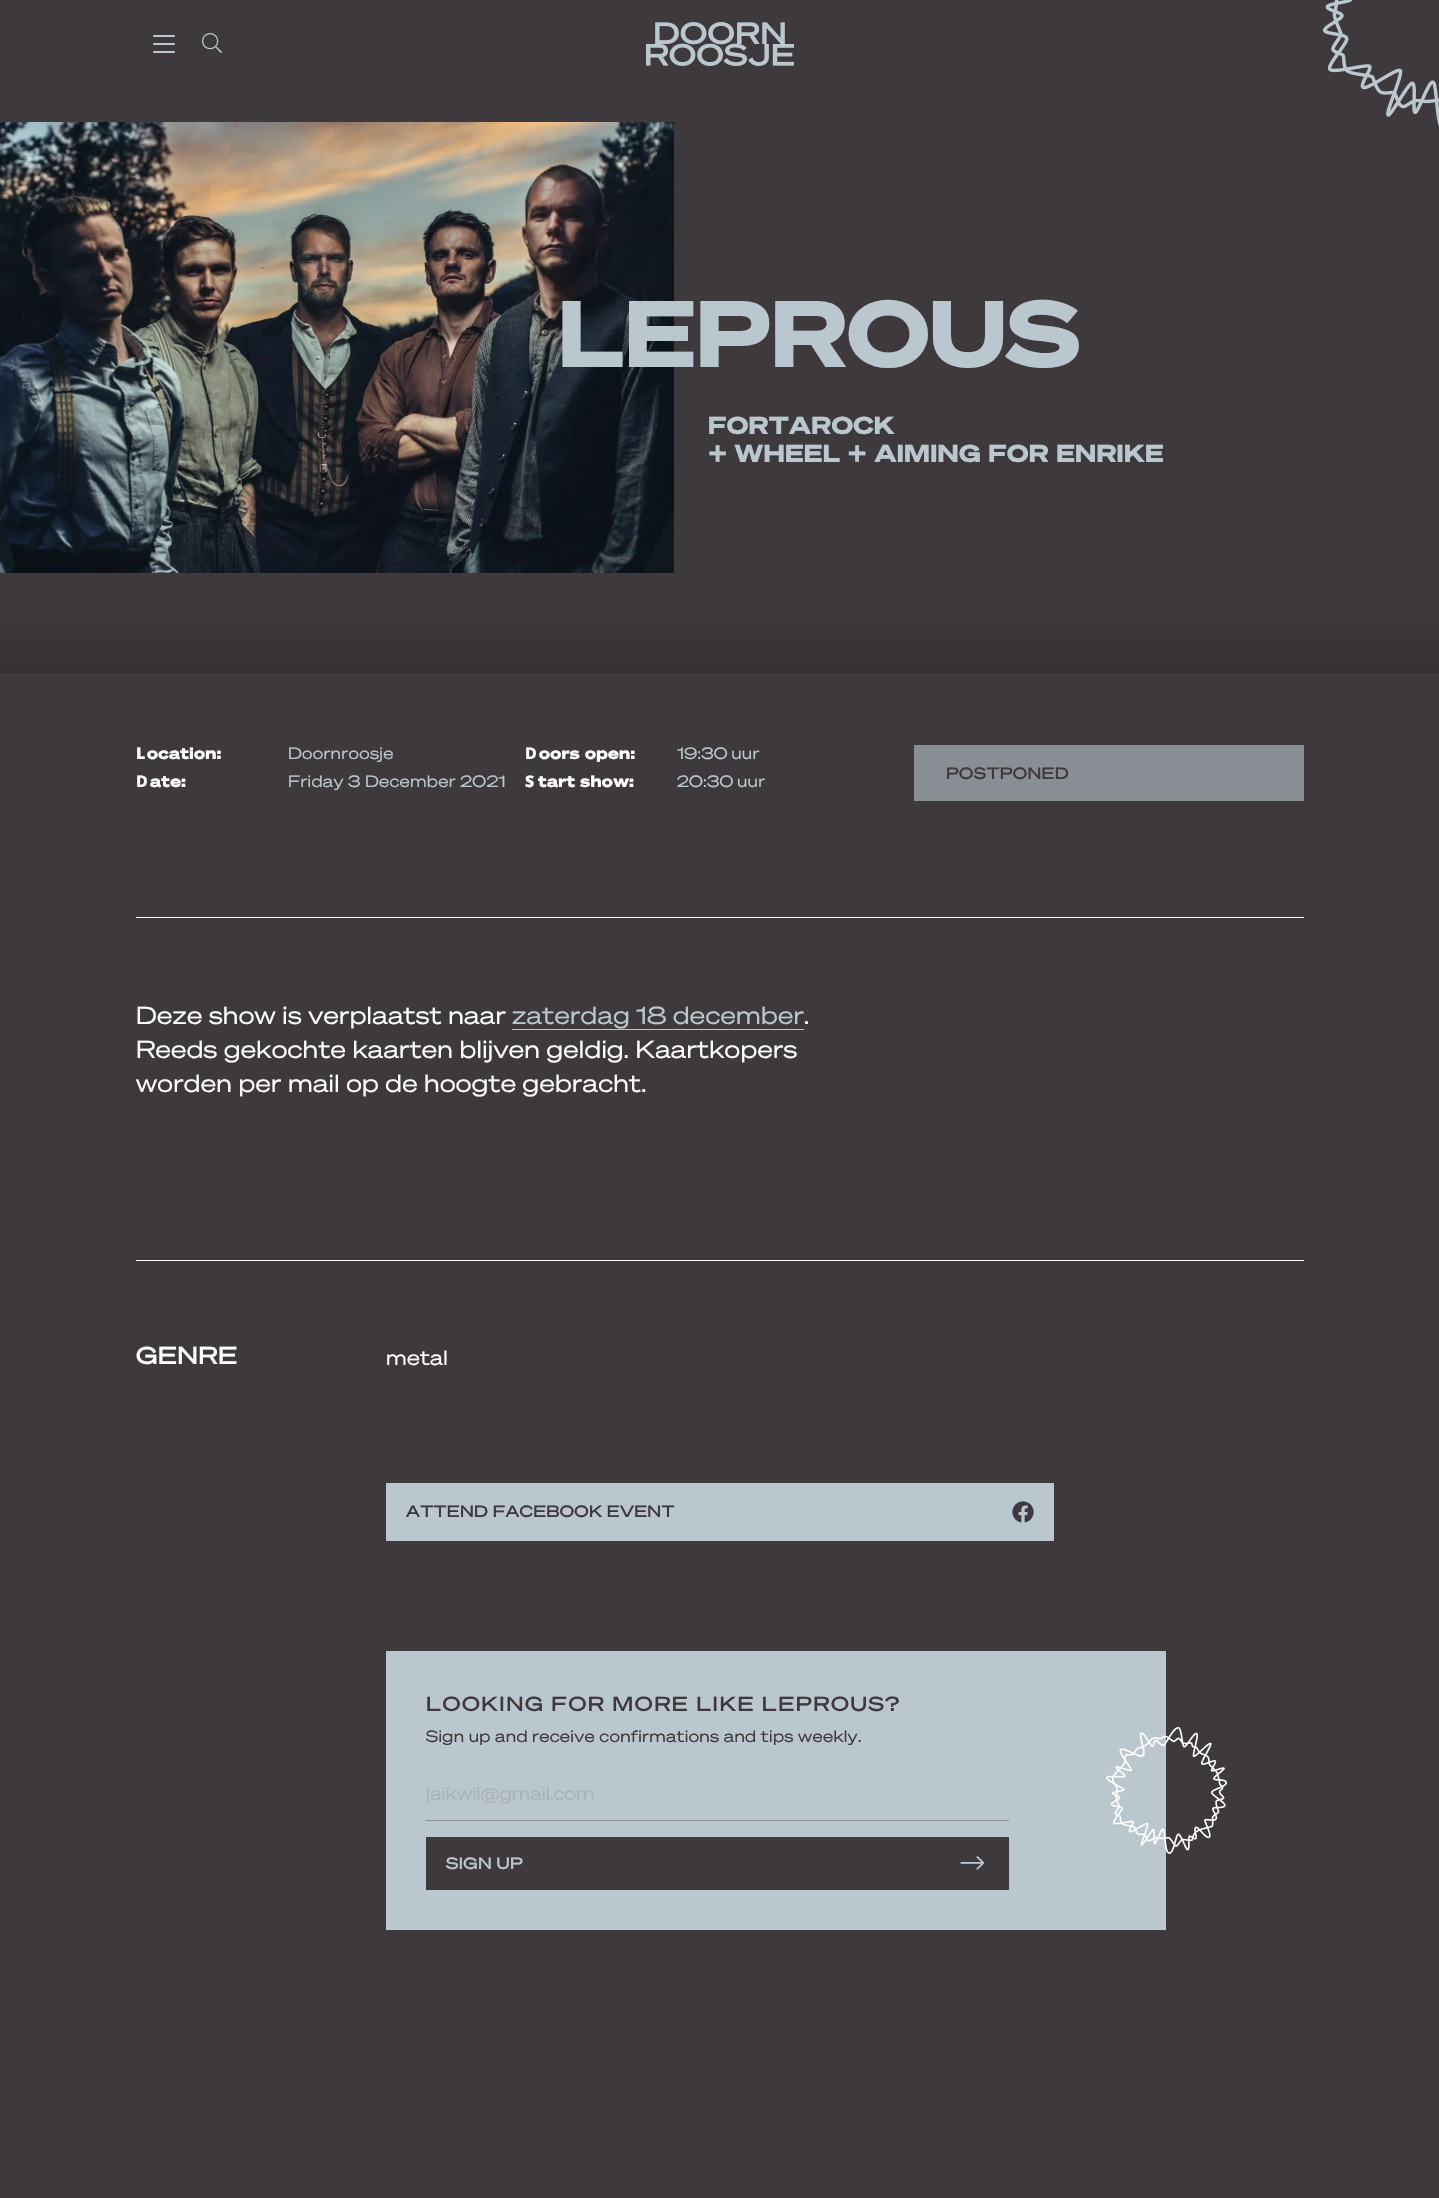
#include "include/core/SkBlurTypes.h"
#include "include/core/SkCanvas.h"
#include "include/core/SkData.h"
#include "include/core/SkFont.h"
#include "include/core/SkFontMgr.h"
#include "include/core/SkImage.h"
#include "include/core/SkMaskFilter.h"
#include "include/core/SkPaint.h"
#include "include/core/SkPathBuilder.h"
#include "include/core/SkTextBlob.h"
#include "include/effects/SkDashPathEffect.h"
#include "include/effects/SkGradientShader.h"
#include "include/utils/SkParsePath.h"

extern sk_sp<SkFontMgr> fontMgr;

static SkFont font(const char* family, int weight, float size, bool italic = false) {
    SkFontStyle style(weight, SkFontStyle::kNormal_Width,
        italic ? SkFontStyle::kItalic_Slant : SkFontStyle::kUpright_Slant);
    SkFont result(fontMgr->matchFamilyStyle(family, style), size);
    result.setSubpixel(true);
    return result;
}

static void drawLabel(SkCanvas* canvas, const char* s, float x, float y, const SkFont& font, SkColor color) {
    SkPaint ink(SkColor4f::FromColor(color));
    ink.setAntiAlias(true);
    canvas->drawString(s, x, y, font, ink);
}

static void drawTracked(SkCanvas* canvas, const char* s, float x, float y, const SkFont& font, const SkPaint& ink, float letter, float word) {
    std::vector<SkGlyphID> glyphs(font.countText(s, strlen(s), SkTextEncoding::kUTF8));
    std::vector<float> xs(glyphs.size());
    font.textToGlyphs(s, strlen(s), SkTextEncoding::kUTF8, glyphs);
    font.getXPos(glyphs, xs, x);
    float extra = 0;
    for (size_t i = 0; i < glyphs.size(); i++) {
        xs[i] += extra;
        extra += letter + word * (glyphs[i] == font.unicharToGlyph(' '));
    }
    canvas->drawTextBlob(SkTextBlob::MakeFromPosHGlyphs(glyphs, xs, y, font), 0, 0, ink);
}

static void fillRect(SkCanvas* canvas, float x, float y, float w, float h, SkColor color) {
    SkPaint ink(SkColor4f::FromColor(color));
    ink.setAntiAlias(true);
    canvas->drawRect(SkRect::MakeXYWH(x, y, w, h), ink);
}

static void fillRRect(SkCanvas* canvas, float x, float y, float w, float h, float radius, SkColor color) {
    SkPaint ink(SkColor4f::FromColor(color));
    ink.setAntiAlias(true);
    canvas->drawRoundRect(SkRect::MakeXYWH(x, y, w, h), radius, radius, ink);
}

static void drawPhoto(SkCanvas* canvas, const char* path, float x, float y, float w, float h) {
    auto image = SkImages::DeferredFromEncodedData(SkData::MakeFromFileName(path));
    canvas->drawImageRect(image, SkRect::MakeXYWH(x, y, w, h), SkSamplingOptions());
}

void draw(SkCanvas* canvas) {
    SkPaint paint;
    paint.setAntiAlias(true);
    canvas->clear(0xFF3E393C);
    fillRRect(canvas, 153, 35, 22, 2, 1, 0xFFBBC7CE);
    fillRRect(canvas, 153, 43, 22, 2, 1, 0xFFBBC7CE);
    fillRRect(canvas, 153, 51, 22, 2, 1, 0xFFBBC7CE);
    drawPhoto(canvas, "assets/img1.png", 202, 33, 20, 20);
    drawPhoto(canvas, "assets/img2.png", 646, 22, 148, 44);
    drawPhoto(canvas, "assets/img3.png", 1322, 0, 117, 127);
    drawPhoto(canvas, "assets/img4.png", 0, 122, 674, 451);
    SkFont font1 = font("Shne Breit", 800, 92);
    paint.setColor(0xFFBBC7CE);
    drawTracked(canvas, "LEPROUS", 558, 367, font1, paint, 0.35f, 0);
    SkFont font2 = font("Shne Breit", 800, 24);
    drawTracked(canvas, "FORTAROCK", 708, 434, font2, paint, 0.35f, 0);
    drawTracked(canvas, "+ WHEEL + AIMING FOR ENRIKE", 708, 462, font2, paint, 0.35f, 0);
    {
        const SkColor colors[] = {0xFF3E393C, 0xFF353033};
        const float stops[] = {0.1f, 1};
        const SkPoint ends[] = {{720, 598}, {720, 673}};
        paint.setShader(SkGradientShader::MakeLinear(ends, colors, stops, 2, SkTileMode::kClamp));
        paint.setAlpha(255);
    }
    canvas->drawRect(SkRect::MakeXYWH(0, 624, 1439, 49), paint);
    SkFont font3 = font("Noto Sans", 900, 16);
    paint.setShader(nullptr);
    paint.setColor(0xFFFFFFFF);
    drawTracked(canvas, "L", 136, 759, font3, paint, 0.35f, 0);
    SkFont font4 = font("Shne Breit", 800, 16);
    drawTracked(canvas, "ocation:", 147, 759, font4, paint, 0.35f, 0);
    SkFont font5 = font("Shne Breit", 400, 16);
    paint.setColor(0xFFBBC7CE);
    drawTracked(canvas, "Doornroosje", 288, 759, font5, paint, 0.35f, 0);
    SkFont font6 = font("Noto Sans", 800, 16);
    paint.setColor(0xFFFFFFFF);
    drawTracked(canvas, "D", 136, 787, font6, paint, 0.35f, 0);
    drawTracked(canvas, "ate:", 150, 787, font4, paint, 0.35f, 0);
    paint.setColor(0xFFBBC7CE);
    drawTracked(canvas, "Friday 3 December 2021", 288, 787, font5, paint, 0.35f, 0);
    paint.setColor(0xFFFFFFFF);
    drawTracked(canvas, "D", 525, 759, font6, paint, 0.35f, 0);
    drawTracked(canvas, "oors open:", 539, 759, font4, paint, 0.35f, 0);
    paint.setColor(0xFFBBC7CE);
    drawTracked(canvas, "19:30 uur", 677, 759, font5, paint, 0.35f, -1);
    paint.setColor(0xFFFFFFFF);
    drawTracked(canvas, "S", 525, 787, font3, paint, 0.35f, 0);
    drawTracked(canvas, "tart show:", 538, 787, font4, paint, 0.35f, 0);
    paint.setColor(0xFFBBC7CE);
    drawTracked(canvas, "20:30 uur", 677, 787, font5, paint, 0.35f, -1);
    fillRect(canvas, 914, 745, 390, 56, 0xFF898E94);
    SkFont font7 = font("Shne Breit", 500, 16);
    paint.setColor(0xFF3E393C);
    drawTracked(canvas, "POSTPONED", 946, 779, font7, paint, 0.35f, 0);
    fillRect(canvas, 136, 917, 1168, 1, 0xFFFFFFFF);
    SkFont font8 = font("Shne Breit", 400, 24);
    paint.setColor(0xFFFFFFFF);
    drawTracked(canvas, "Deze show is verplaatst naar", 136, 1024, font8, paint, 0.35f, 0);
    paint.setColor(0xFFBBC7CE);
    drawTracked(canvas, "zaterdag 18 december", 512, 1024, font8, paint, 0.35f, 0);
    fillRect(canvas, 512, 1029, 292, 1, 0xFFBBC7CE);
    paint.setColor(0xFFFFFFFF);
    drawTracked(canvas, ".", 804, 1024, font8, paint, 0.35f, 0);
    drawTracked(canvas, "Reeds gekochte kaarten blijven geldig. Kaartkopers", 136, 1058, font8, paint, 0.35f, 0);
    drawTracked(canvas, "worden per mail op de hoogte gebracht.", 136, 1092, font8, paint, 0.35f, 0);
    fillRect(canvas, 136, 1260, 1168, 1, 0xFFFFFFFF);
    SkFont font9 = font("Shne Breit", 500, 24);
    drawTracked(canvas, "GENRE", 136, 1364, font9, paint, 0.35f, 0);
    SkFont font10 = font("Shne Breit", 400, 20);
    drawTracked(canvas, "metal", 386, 1365, font10, paint, 0.35f, 0);
    fillRect(canvas, 386, 1483, 668, 58, 0xFFBBC7CE);
    paint.setColor(0xFF3E393C);
    drawTracked(canvas, "ATTEND FACEBOOK EVENT", 406, 1517, font7, paint, 0.35f, 0);
    drawPhoto(canvas, "assets/img5.png", 1012, 1501, 22, 22);
    fillRect(canvas, 386, 1651, 780, 279, 0xFFBBC7CE);
    SkFont font11 = font("Shne Breit", 500, 20);
    drawTracked(canvas, "LOOKING FOR MORE LIKE LEPROUS?", 426, 1711, font11, paint, 1.6f, 0);
    drawTracked(canvas, "Sign up and receive confirmations and tips weekly.", 426, 1742, font5, paint, 0.35f, 0);
    drawPhoto(canvas, "assets/img6.png", 1106, 1727, 121, 127);
    fillRect(canvas, 426, 1820, 583, 1, 0xFF8E9499);
    canvas->save();
    canvas->clipRect(SkRect::MakeXYWH(426, 1781, 583, 23));
    SkFont font12 = font("Shne Breit", 400, 18);
    drawLabel(canvas, "jaikwil@gmail.com", 426, 1800, font12, 0xFFA9B3B9);
    canvas->restore();
    fillRect(canvas, 426, 1837, 583, 53, 0xFF3E393C);
    paint.setColor(0xFFBBC7CE);
    drawTracked(canvas, "SIGN UP", 446, 1869, font7, paint, 0.35f, 0);
    drawPhoto(canvas, "assets/img7.png", 960, 1856, 25, 14);
}
